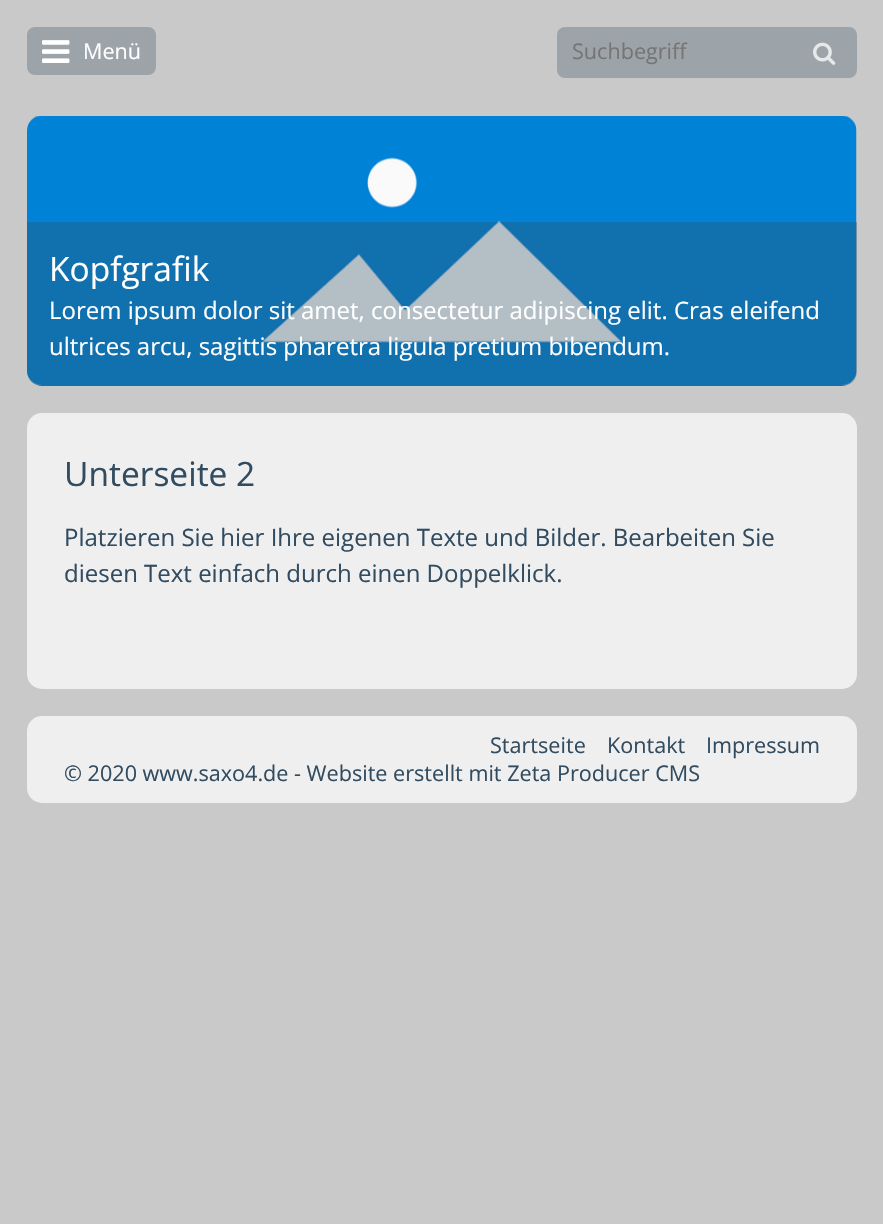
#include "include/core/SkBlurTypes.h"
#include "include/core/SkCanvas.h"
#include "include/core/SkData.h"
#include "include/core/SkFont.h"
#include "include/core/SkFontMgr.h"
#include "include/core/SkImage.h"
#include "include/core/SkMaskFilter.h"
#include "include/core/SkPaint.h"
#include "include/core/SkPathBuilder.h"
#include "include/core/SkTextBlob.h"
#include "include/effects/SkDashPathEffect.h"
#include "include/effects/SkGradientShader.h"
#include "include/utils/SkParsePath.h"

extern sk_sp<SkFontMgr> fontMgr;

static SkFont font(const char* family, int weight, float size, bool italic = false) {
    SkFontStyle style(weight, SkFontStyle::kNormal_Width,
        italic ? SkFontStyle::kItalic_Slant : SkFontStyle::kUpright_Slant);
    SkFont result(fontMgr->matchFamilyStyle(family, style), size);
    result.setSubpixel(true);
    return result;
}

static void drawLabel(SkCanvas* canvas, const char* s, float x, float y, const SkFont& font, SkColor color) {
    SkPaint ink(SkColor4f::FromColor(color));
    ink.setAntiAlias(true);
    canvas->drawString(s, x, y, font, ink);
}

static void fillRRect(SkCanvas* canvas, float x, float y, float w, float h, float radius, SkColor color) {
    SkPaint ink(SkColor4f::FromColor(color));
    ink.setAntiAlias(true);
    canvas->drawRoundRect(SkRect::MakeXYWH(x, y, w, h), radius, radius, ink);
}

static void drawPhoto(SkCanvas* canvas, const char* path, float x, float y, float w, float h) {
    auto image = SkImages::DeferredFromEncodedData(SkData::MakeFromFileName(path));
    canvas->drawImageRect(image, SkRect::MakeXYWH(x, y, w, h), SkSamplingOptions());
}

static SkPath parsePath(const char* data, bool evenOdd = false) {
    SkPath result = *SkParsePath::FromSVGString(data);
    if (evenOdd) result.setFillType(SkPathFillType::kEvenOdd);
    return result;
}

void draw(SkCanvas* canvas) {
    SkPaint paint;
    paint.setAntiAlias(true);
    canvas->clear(0xFFC9C9C9);
    fillRRect(canvas, 27, 27, 129, 48, 8, 0xFF9DA4A9);
    drawPhoto(canvas, "assets/img1.png", 42, 40, 28, 23);
    SkFont font1 = font("Open Sans", 400, 21.6f);
    drawLabel(canvas, "Menü", 83, 59, font1, 0xFFFFFFFF);
    fillRRect(canvas, 557, 27, 300, 51, 8, 0xFF9DA4A9);
    drawLabel(canvas, "Suchbegriff", 572, 59, font1, 0xFF757575);
    drawPhoto(canvas, "assets/img2.png", 813, 42, 23, 23);
    drawPhoto(canvas, "assets/img3.png", 27, 116, 830, 270);
    paint.setColor(0x59314C61);
    canvas->drawPath(parsePath("M27 222H857V371C857 379.5 850.5 386 842 386H42C33.5 386 27 379.5 27 371Z"), paint);
    SkFont font2 = font("Open Sans", 400, 33.5f);
    drawLabel(canvas, "Kopfgrafik", 49, 281, font2, 0xFFFFFFFF);
    SkFont font3 = font("Open Sans", 400, 24);
    drawLabel(canvas, "Lorem ipsum dolor sit amet, consectetur adipiscing elit. Cras eleifend", 49, 319, font3, 0xFFFFFFFF);
    drawLabel(canvas, "ultrices arcu, sagittis pharetra ligula pretium bibendum.", 49, 355, font3, 0xFFFFFFFF);
    fillRRect(canvas, 27, 413, 830, 276, 15, 0xFFEFEFEF);
    drawLabel(canvas, "Unterseite 2", 64, 486, font2, 0xFF314C61);
    drawLabel(canvas, "Platzieren Sie hier Ihre eigenen Texte und Bilder. Bearbeiten Sie", 64, 546, font3, 0xFF314C61);
    drawLabel(canvas, "diesen Text einfach durch einen Doppelklick.", 64, 582, font3, 0xFF314C61);
    fillRRect(canvas, 27, 716, 830, 87, 15, 0xFFEFEFEF);
    drawLabel(canvas, "Startseite", 490, 753, font1, 0xFF314C61);
    drawLabel(canvas, "Kontakt", 607, 753, font1, 0xFF314C61);
    drawLabel(canvas, "Impressum", 706, 753, font1, 0xFF314C61);
    drawLabel(canvas, "© 2020 www.saxo4.de - Website erstellt mit Zeta Producer CMS", 64, 781, font1, 0xFF314C61);
}
